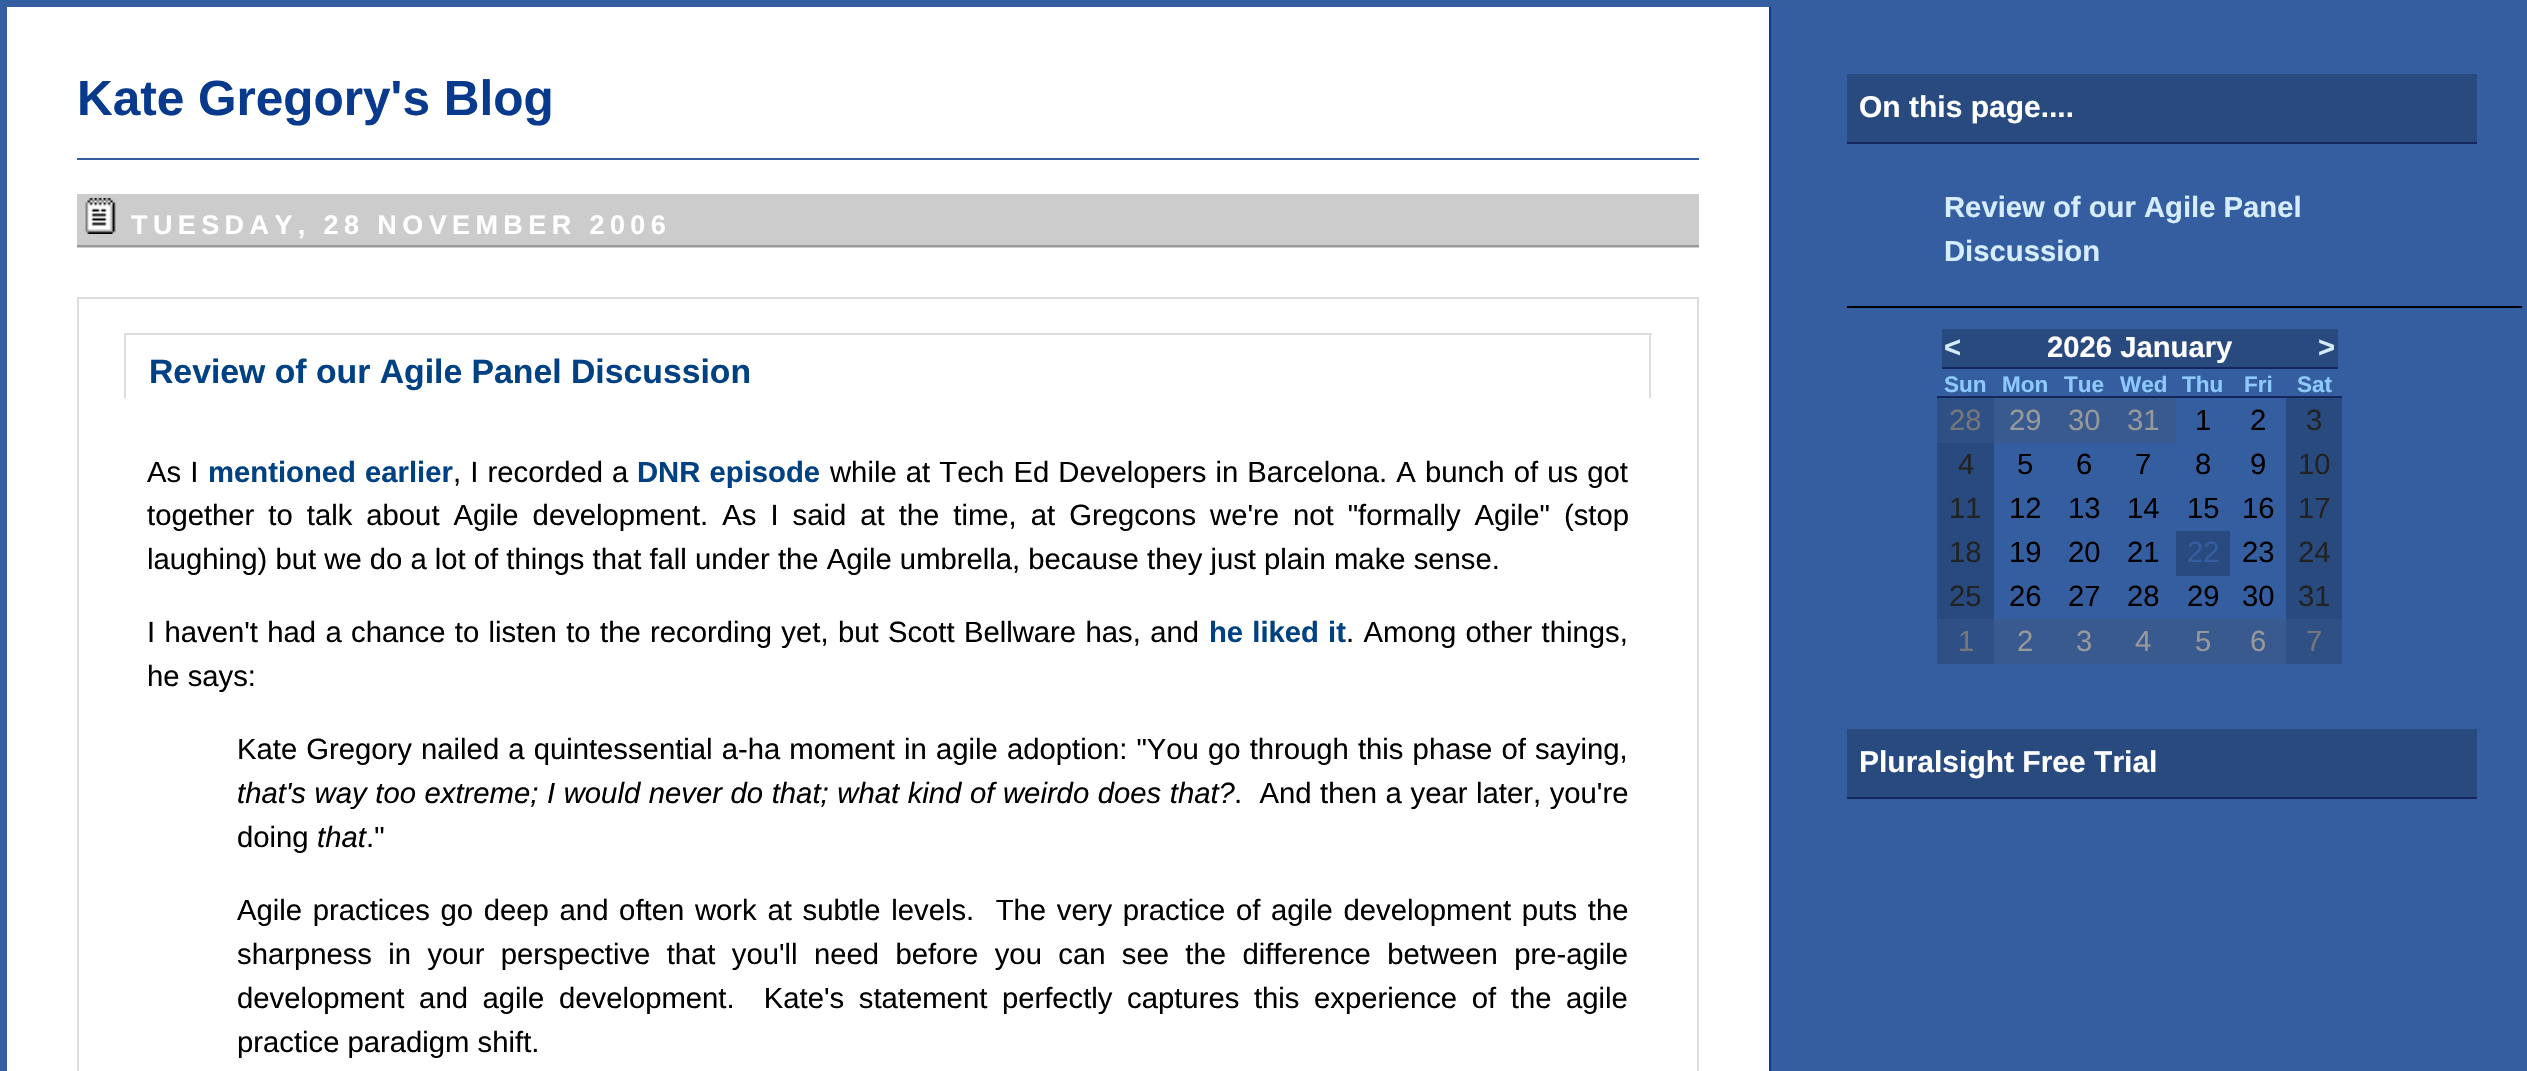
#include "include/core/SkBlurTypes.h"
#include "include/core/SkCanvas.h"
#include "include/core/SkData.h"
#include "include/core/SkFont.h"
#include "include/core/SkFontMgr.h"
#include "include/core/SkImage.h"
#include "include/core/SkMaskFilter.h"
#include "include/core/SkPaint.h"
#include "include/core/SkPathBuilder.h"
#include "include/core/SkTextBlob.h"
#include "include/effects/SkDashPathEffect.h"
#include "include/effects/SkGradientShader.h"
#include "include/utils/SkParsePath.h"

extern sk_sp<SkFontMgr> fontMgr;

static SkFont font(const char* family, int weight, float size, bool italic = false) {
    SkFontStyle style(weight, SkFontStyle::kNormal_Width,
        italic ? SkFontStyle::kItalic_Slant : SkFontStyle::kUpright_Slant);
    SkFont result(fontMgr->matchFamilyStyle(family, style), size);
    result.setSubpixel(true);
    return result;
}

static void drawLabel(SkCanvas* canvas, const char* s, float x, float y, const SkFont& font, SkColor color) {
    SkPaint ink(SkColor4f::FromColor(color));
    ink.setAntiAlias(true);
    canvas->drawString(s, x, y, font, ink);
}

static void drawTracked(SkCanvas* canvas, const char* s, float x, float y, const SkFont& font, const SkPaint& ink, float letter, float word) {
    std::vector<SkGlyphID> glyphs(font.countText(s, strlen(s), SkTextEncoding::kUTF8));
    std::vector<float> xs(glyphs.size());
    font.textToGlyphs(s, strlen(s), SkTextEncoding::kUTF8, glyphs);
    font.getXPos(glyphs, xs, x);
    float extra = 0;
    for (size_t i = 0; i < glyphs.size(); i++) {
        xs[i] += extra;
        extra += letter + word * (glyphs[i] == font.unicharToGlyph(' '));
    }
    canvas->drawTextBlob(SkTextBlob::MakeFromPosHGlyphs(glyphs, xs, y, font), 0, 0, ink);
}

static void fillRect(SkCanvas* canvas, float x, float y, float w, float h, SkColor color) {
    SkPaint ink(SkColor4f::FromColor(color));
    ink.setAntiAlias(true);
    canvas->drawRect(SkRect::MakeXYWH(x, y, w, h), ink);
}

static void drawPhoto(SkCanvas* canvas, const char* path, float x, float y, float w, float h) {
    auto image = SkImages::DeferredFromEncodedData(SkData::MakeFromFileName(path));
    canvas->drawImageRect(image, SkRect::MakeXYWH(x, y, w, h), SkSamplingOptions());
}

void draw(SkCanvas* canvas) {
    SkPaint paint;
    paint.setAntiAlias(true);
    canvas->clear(0xFF355EA0);
    fillRect(canvas, 7, 7, 1762, 1064, 0xFFFFFFFF);
    fillRect(canvas, 1769, 7, 2, 1064, 0xFF07398D);
    fillRect(canvas, 77, 158, 1622, 2, 0xFF355EA0);
    SkFont font1 = font("Liberation Sans", 700, 49.5f);
    drawLabel(canvas, "Kate Gregory's Blog", 77, 115, font1, 0xFF07398D);
    fillRect(canvas, 77, 194, 1622, 54, 0xFFCCCCCC);
    fillRect(canvas, 77, 245, 1622, 2, 0xFF999999);
    drawPhoto(canvas, "assets/img1.png", 85, 198, 31, 36);
    SkFont font2 = font("Liberation Sans", 700, 27);
    paint.setColor(0xFFFFFFFF);
    drawTracked(canvas, "TUESDAY, 28 NOVEMBER 2006", 131, 234, font2, paint, 5.4f, 0);
    paint.setStroke(true);
    paint.setStrokeWidth(2);
    paint.setColor(0xFFDDDDDD);
    canvas->drawRect(SkRect::MakeXYWH(78, 298, 1620, 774), paint);
    fillRect(canvas, 124, 333, 1528, 2, 0xFFDDDDDD);
    fillRect(canvas, 1649, 333, 2, 65, 0xFFDDDDDD);
    fillRect(canvas, 124, 333, 2, 65, 0xFFDDDDDD);
    SkFont font3 = font("Liberation Sans", 700, 33.75f);
    drawLabel(canvas, "Review of our Agile Panel Discussion", 149, 383, font3, 0xFF004183);
    SkFont font4 = font("Liberation Sans", 400, 29.25f);
    paint.setStroke(false);
    paint.setColor(0xFF000000);
    drawTracked(canvas, "As I", 147, 482, font4, paint, 0, 1);
    SkFont font5 = font("Liberation Sans", 700, 29.25f);
    paint.setColor(0xFF004183);
    drawTracked(canvas, "mentioned earlier", 208, 482, font5, paint, 0, 1);
    paint.setColor(0xFF000000);
    drawTracked(canvas, ", I recorded a", 453, 482, font4, paint, 0, 1);
    paint.setColor(0xFF004183);
    drawTracked(canvas, "DNR episode", 637, 482, font5, paint, 0, 1);
    paint.setColor(0xFF000000);
    drawTracked(canvas, "while at Tech Ed Developers in Barcelona. A bunch of us got", 830, 482, font4, paint, 0, 1);
    drawTracked(canvas, "together to talk about Agile development. As I said at the time, at Gregcons we're not \"formally Agile\" (stop", 147, 525, font4, paint, 0, 5.9f);
    drawLabel(canvas, "laughing) but we do a lot of things that fall under the Agile umbrella, because they just plain make sense.", 147, 569, font4, 0xFF000000);
    drawTracked(canvas, "I haven't had a chance to listen to the recording yet, but Scott Bellware has, and", 147, 642, font4, paint, 0, 1.25f);
    paint.setColor(0xFF004183);
    drawTracked(canvas, "he liked it", 1209, 642, font5, paint, 0, 1);
    paint.setColor(0xFF000000);
    drawTracked(canvas, ". Among other things,", 1346, 642, font4, paint, 0, 1.25f);
    drawLabel(canvas, "he says:", 147, 686, font4, 0xFF000000);
    drawTracked(canvas, "Kate Gregory nailed a quintessential a-ha moment in agile adoption: \"You go through this phase of saying,", 237, 759, font4, paint, 0, 1);
    SkFont font6 = font("Liberation Sans", 400, 29.25f, true);
    drawTracked(canvas, "that's way too extreme; I would never do that; what kind of weirdo does that?", 237, 803, font6, paint, 0, 0.5f);
    drawTracked(canvas, ".  And then a year later, you're", 1234, 803, font4, paint, 0, 0.5f);
    drawLabel(canvas, "doing", 237, 847, font4, 0xFF000000);
    drawLabel(canvas, "that", 317, 847, font6, 0xFF000000);
    drawLabel(canvas, ".\"", 366, 847, font4, 0xFF000000);
    drawTracked(canvas, "Agile practices go deep and often work at subtle levels.  The very practice of agile development puts the", 237, 920, font4, paint, 0, 2.6f);
    drawTracked(canvas, "sharpness in your perspective that you'll need before you can see the difference between pre-agile", 237, 964, font4, paint, 0, 8.25f);
    drawTracked(canvas, "development and agile development.  Kate's statement perfectly captures this experience of the agile", 237, 1008, font4, paint, 0, 6.5f);
    drawLabel(canvas, "practice paradigm shift.", 237, 1052, font4, 0xFF000000);
    fillRect(canvas, 1847, 74, 630, 68, 0xFF294A7F);
    fillRect(canvas, 1847, 142, 630, 2, 0xFF14265B);
    SkFont font7 = font("Liberation Sans", 700, 30);
    drawLabel(canvas, "On this page....", 1859, 117, font7, 0xFFFFFFFF);
    drawLabel(canvas, "Review of our Agile Panel", 1944, 217, font5, 0xFFD6EDFF);
    drawLabel(canvas, "Discussion", 1944, 261, font5, 0xFFD6EDFF);
    fillRect(canvas, 1847, 306, 675, 2, 0xFF000000);
    fillRect(canvas, 1942, 329, 396, 38, 0xFF294A7F);
    fillRect(canvas, 1942, 367, 396, 2, 0xFF14265B);
    drawLabel(canvas, "<", 1944, 357, font5, 0xFFD6EDFF);
    drawLabel(canvas, "2026 January", 2047, 357, font5, 0xFFFFFFFF);
    drawLabel(canvas, ">", 2318, 357, font5, 0xFFD6EDFF);
    fillRect(canvas, 1937, 396, 405, 2, 0xFF14265B);
    SkFont font8 = font("Liberation Sans", 700, 22.5f);
    drawLabel(canvas, "Sun", 1944, 392, font8, 0xFF8ECAFF);
    drawLabel(canvas, "Mon", 2002, 392, font8, 0xFF8ECAFF);
    drawLabel(canvas, "Tue", 2064, 392, font8, 0xFF8ECAFF);
    drawLabel(canvas, "Wed", 2120, 392, font8, 0xFF8ECAFF);
    drawLabel(canvas, "Thu", 2182, 392, font8, 0xFF8ECAFF);
    drawLabel(canvas, "Fri", 2244, 392, font8, 0xFF8ECAFF);
    drawLabel(canvas, "Sat", 2297, 392, font8, 0xFF8ECAFF);
    fillRect(canvas, 1937, 398, 57, 45, 0xFF2F5085);
    drawLabel(canvas, "28", 1949, 430, font4, 0xFF777777);
    fillRect(canvas, 1994, 398, 182, 45, 0xFF395A8F);
    drawLabel(canvas, "29", 2009, 430, font4, 0xFF999999);
    drawLabel(canvas, "30", 2068, 430, font4, 0xFF999999);
    drawLabel(canvas, "31", 2127, 430, font4, 0xFF999999);
    drawLabel(canvas, "1", 2195, 430, font4, 0xFF000000);
    drawLabel(canvas, "2", 2250, 430, font4, 0xFF000000);
    fillRect(canvas, 2286, 398, 56, 221, 0xFF294A7F);
    drawLabel(canvas, "3", 2306, 430, font4, 0xFF222222);
    fillRect(canvas, 1937, 443, 57, 176, 0xFF294A7F);
    drawLabel(canvas, "4", 1958, 474, font4, 0xFF222222);
    drawLabel(canvas, "5", 2017, 474, font4, 0xFF000000);
    drawLabel(canvas, "6", 2076, 474, font4, 0xFF000000);
    drawLabel(canvas, "7", 2135, 474, font4, 0xFF000000);
    drawLabel(canvas, "8", 2195, 474, font4, 0xFF000000);
    drawLabel(canvas, "9", 2250, 474, font4, 0xFF000000);
    drawLabel(canvas, "10", 2298, 474, font4, 0xFF222222);
    drawLabel(canvas, "11", 1949, 518, font4, 0xFF222222);
    drawLabel(canvas, "12", 2009, 518, font4, 0xFF000000);
    drawLabel(canvas, "13", 2068, 518, font4, 0xFF000000);
    drawLabel(canvas, "14", 2127, 518, font4, 0xFF000000);
    drawLabel(canvas, "15", 2187, 518, font4, 0xFF000000);
    drawLabel(canvas, "16", 2242, 518, font4, 0xFF000000);
    drawLabel(canvas, "17", 2298, 518, font4, 0xFF222222);
    drawLabel(canvas, "18", 1949, 562, font4, 0xFF222222);
    drawLabel(canvas, "19", 2009, 562, font4, 0xFF000000);
    drawLabel(canvas, "20", 2068, 562, font4, 0xFF000000);
    drawLabel(canvas, "21", 2127, 562, font4, 0xFF000000);
    fillRect(canvas, 2176, 531, 54, 45, 0xFF294A7F);
    drawLabel(canvas, "22", 2187, 562, font4, 0xFF355EA0);
    drawLabel(canvas, "23", 2242, 562, font4, 0xFF000000);
    drawLabel(canvas, "24", 2298, 562, font4, 0xFF222222);
    drawLabel(canvas, "25", 1949, 606, font4, 0xFF222222);
    drawLabel(canvas, "26", 2009, 606, font4, 0xFF000000);
    drawLabel(canvas, "27", 2068, 606, font4, 0xFF000000);
    drawLabel(canvas, "28", 2127, 606, font4, 0xFF000000);
    drawLabel(canvas, "29", 2187, 606, font4, 0xFF000000);
    drawLabel(canvas, "30", 2242, 606, font4, 0xFF000000);
    drawLabel(canvas, "31", 2298, 606, font4, 0xFF222222);
    fillRect(canvas, 1937, 619, 57, 45, 0xFF2F5085);
    drawLabel(canvas, "1", 1958, 651, font4, 0xFF777777);
    fillRect(canvas, 1994, 619, 292, 45, 0xFF395A8F);
    drawLabel(canvas, "2", 2017, 651, font4, 0xFF999999);
    drawLabel(canvas, "3", 2076, 651, font4, 0xFF999999);
    drawLabel(canvas, "4", 2135, 651, font4, 0xFF999999);
    drawLabel(canvas, "5", 2195, 651, font4, 0xFF999999);
    drawLabel(canvas, "6", 2250, 651, font4, 0xFF999999);
    fillRect(canvas, 2286, 619, 56, 45, 0xFF2F5085);
    drawLabel(canvas, "7", 2306, 651, font4, 0xFF777777);
    fillRect(canvas, 1847, 729, 630, 68, 0xFF294A7F);
    fillRect(canvas, 1847, 797, 630, 2, 0xFF14265B);
    drawLabel(canvas, "Pluralsight Free Trial", 1859, 772, font7, 0xFFFFFFFF);
}
